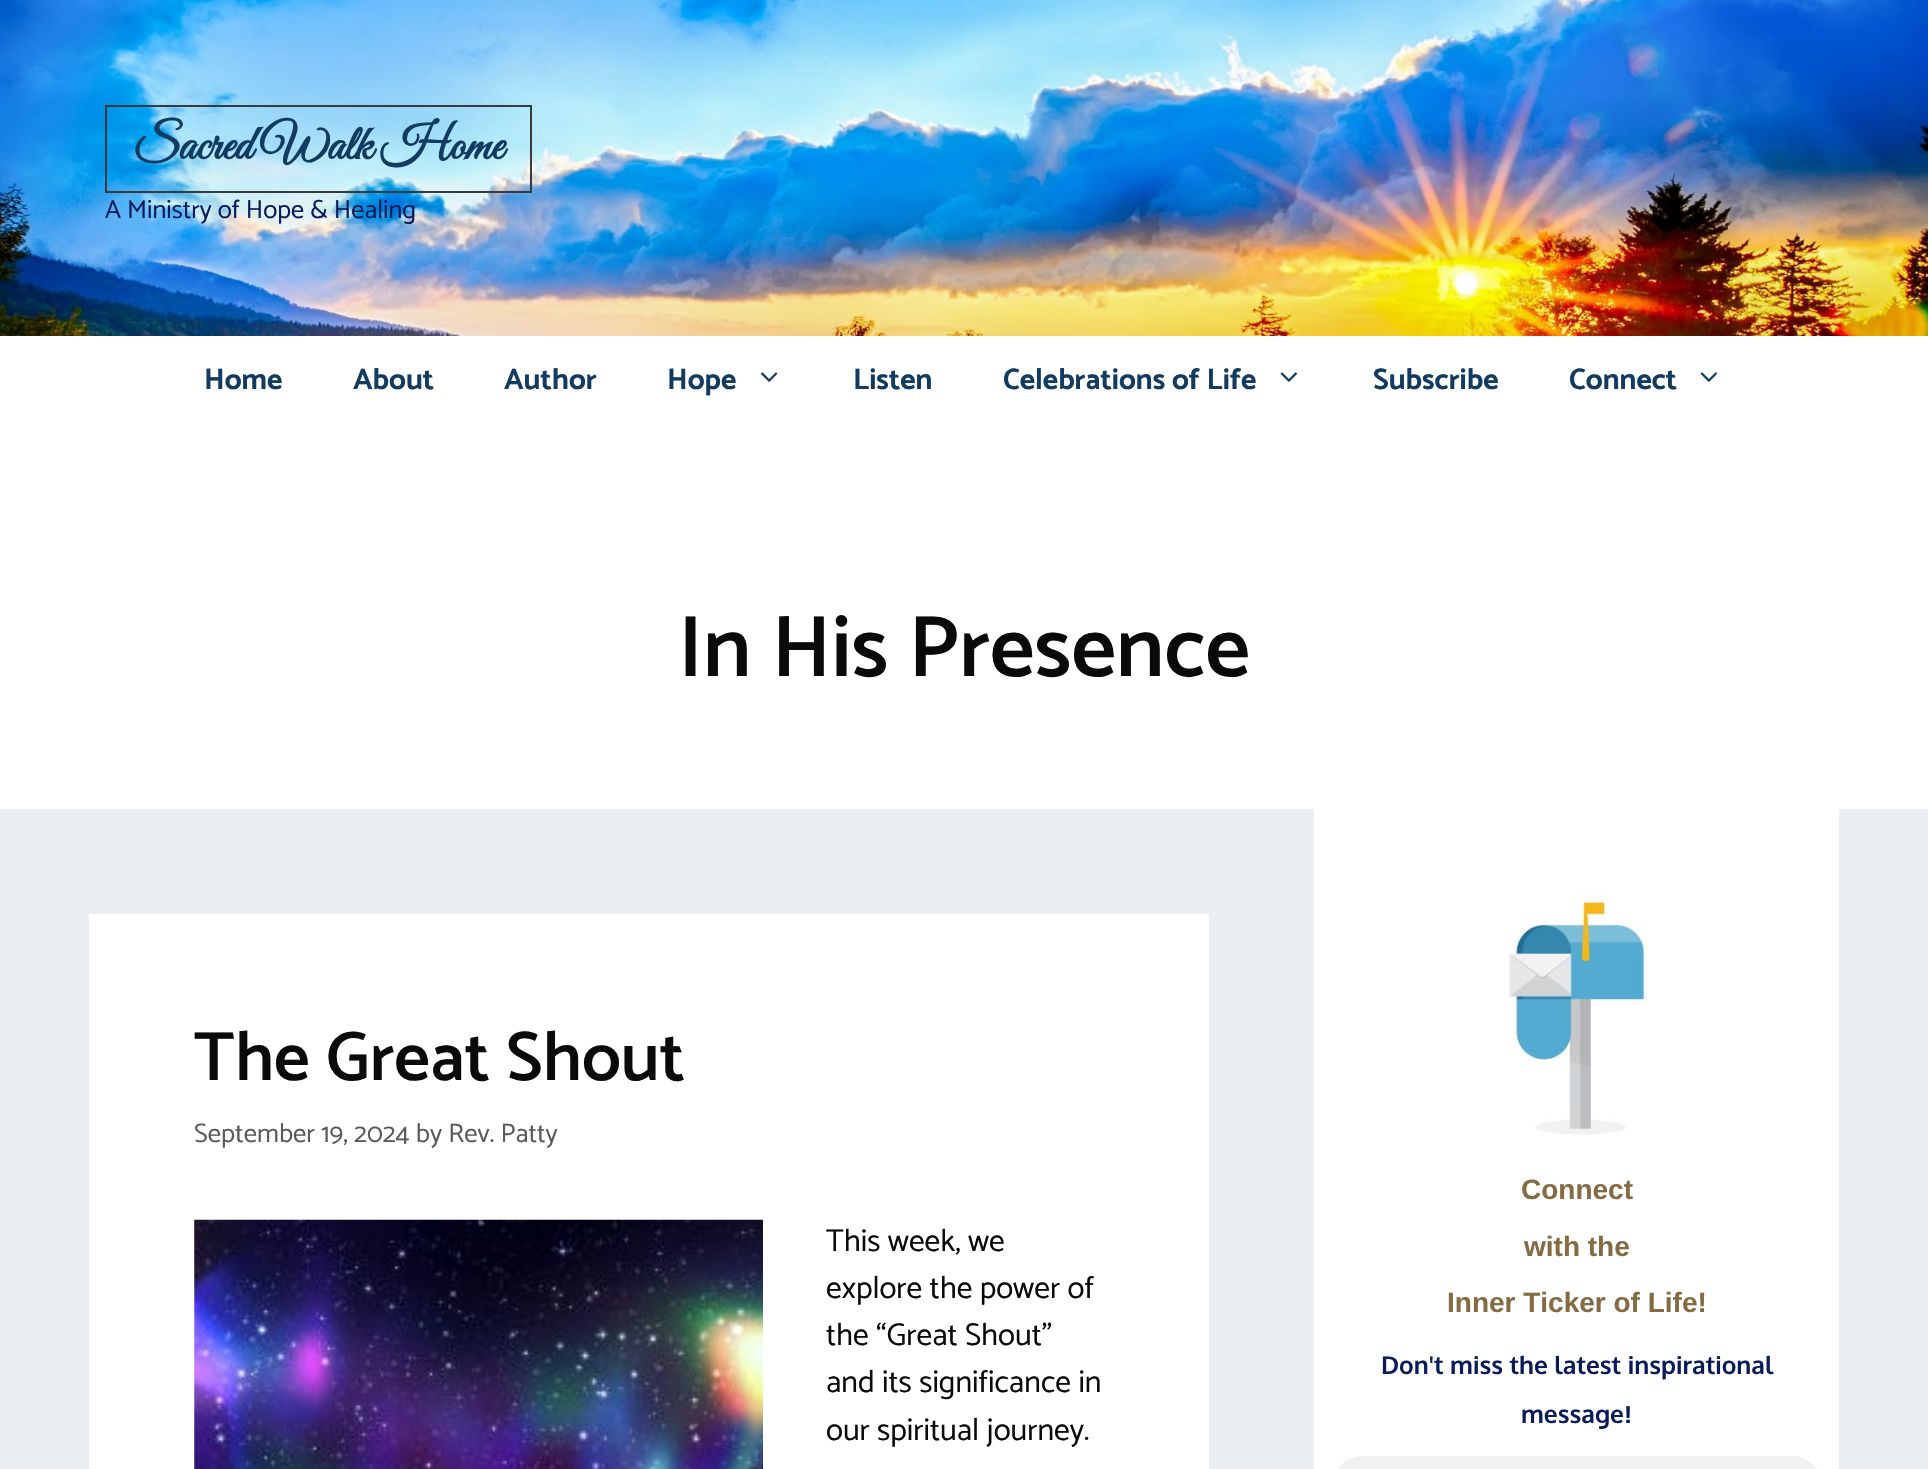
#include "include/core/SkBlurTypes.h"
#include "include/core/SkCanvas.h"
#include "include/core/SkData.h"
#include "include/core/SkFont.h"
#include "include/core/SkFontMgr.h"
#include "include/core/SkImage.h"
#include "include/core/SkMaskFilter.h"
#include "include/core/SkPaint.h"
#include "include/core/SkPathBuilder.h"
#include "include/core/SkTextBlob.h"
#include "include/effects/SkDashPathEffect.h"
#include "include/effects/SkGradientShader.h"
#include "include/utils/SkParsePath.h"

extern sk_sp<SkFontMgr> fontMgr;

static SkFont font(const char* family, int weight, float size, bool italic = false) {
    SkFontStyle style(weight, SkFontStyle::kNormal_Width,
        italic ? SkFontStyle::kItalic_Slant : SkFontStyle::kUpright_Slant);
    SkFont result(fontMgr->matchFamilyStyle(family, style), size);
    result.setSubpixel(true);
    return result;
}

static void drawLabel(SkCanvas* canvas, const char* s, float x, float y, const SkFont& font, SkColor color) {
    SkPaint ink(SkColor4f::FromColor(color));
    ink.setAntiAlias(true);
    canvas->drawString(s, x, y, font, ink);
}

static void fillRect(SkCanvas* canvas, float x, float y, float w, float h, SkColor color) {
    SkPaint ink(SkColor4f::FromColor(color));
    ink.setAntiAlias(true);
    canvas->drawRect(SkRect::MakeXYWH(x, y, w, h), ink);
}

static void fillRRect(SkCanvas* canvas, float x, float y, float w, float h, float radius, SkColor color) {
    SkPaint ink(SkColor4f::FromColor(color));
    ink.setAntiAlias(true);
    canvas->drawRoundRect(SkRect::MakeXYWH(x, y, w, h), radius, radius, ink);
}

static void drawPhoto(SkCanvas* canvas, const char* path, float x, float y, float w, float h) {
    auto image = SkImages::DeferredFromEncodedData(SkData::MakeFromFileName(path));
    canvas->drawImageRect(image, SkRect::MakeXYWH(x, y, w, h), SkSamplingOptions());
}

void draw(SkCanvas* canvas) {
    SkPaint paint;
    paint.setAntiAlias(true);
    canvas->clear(0xFFEBEFF4);
    drawPhoto(canvas, "assets/img1.png", 0, 0, 1928, 336);
    paint.setStroke(true);
    paint.setStrokeWidth(2);
    paint.setColor(0xFF3A3A3A);
    canvas->drawRect(SkRect::MakeXYWH(106, 106, 425, 86), paint);
    SkFont font1 = font("Great Vibes", 700, 49);
    drawLabel(canvas, "Sacred Walk Home", 133, 159, font1, 0xFF123B62);
    SkFont font2 = font("Catamaran", 400, 26.25f);
    drawLabel(canvas, "A Ministry of Hope & Healing", 105, 218, font2, 0xFF091B59);
    fillRect(canvas, 0, 336, 1928, 473, 0xFFFFFFFF);
    SkFont font3 = font("Catamaran", 700, 29.75f);
    drawLabel(canvas, "Home", 204, 389, font3, 0xFF123B62);
    drawLabel(canvas, "About", 353, 389, font3, 0xFF123B62);
    drawLabel(canvas, "Author", 504, 389, font3, 0xFF123B62);
    drawLabel(canvas, "Hope", 667, 389, font3, 0xFF123B62);
    drawPhoto(canvas, "assets/img2.png", 760, 372, 18, 10);
    drawLabel(canvas, "Listen", 853, 389, font3, 0xFF123B62);
    drawLabel(canvas, "Celebrations of Life", 1003, 389, font3, 0xFF123B62);
    drawPhoto(canvas, "assets/img3.png", 1280, 372, 17, 10);
    drawLabel(canvas, "Subscribe", 1373, 389, font3, 0xFF123B62);
    drawLabel(canvas, "Connect", 1569, 389, font3, 0xFF123B62);
    drawPhoto(canvas, "assets/img3.png", 1700, 372, 17, 10);
    SkFont font4 = font("Catamaran", 600, 87.5f);
    drawLabel(canvas, "In His Presence", 678, 676, font4, 0xFF0A0A0A);
    fillRect(canvas, 89, 914, 1120, 555, 0xFFFFFFFF);
    SkFont font5 = font("Catamaran", 600, 70);
    drawLabel(canvas, "The Great Shout", 194, 1080, font5, 0xFF0A0A0A);
    SkFont font6 = font("Catamaran", 400, 26.75f);
    drawLabel(canvas, "September 19, 2024 by Rev. Patty", 194, 1142, font6, 0xFF595959);
    drawPhoto(canvas, "assets/img4.png", 194, 1219, 569, 250);
    SkFont font7 = font("Catamaran", 400, 31.5f);
    drawLabel(canvas, "This week, we", 826, 1251, font7, 0xFF0A0A0A);
    drawLabel(canvas, "explore the power of", 826, 1298, font7, 0xFF0A0A0A);
    drawLabel(canvas, "the “Great Shout”", 826, 1345, font7, 0xFF0A0A0A);
    drawLabel(canvas, "and its significance in", 826, 1392, font7, 0xFF0A0A0A);
    drawLabel(canvas, "our spiritual journey.", 826, 1440, font7, 0xFF0A0A0A);
    fillRect(canvas, 1314, 809, 525, 660, 0xFFFFFFFF);
    drawPhoto(canvas, "assets/img5.png", 1507, 892, 140, 243);
    SkFont font8 = font("Liberation Sans", 700, 28);
    drawLabel(canvas, "Connect", 1521, 1199, font8, 0xFF846B42);
    drawLabel(canvas, "with the", 1524, 1256, font8, 0xFF846B42);
    drawLabel(canvas, "Inner Ticker of Life!", 1447, 1312, font8, 0xFF846B42);
    SkFont font9 = font("Oxygen", 700, 24.5f);
    drawLabel(canvas, "Don't miss the latest inspirational", 1381, 1374, font9, 0xFF091B59);
    drawLabel(canvas, "message", 1521, 1423, font9, 0xFF091B59);
    SkFont font10 = font("Liberation Sans", 700, 24.5f);
    drawLabel(canvas, "!", 1624, 1423, font10, 0xFF091B59);
    fillRRect(canvas, 1332, 1456, 490, 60, 46.5f, 0xFFF1F1F1);
}
